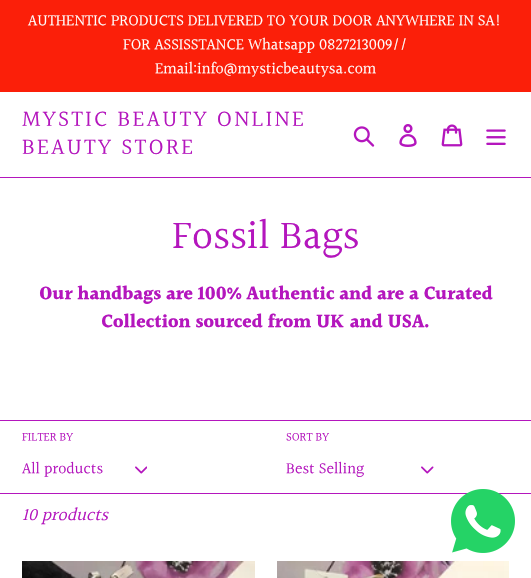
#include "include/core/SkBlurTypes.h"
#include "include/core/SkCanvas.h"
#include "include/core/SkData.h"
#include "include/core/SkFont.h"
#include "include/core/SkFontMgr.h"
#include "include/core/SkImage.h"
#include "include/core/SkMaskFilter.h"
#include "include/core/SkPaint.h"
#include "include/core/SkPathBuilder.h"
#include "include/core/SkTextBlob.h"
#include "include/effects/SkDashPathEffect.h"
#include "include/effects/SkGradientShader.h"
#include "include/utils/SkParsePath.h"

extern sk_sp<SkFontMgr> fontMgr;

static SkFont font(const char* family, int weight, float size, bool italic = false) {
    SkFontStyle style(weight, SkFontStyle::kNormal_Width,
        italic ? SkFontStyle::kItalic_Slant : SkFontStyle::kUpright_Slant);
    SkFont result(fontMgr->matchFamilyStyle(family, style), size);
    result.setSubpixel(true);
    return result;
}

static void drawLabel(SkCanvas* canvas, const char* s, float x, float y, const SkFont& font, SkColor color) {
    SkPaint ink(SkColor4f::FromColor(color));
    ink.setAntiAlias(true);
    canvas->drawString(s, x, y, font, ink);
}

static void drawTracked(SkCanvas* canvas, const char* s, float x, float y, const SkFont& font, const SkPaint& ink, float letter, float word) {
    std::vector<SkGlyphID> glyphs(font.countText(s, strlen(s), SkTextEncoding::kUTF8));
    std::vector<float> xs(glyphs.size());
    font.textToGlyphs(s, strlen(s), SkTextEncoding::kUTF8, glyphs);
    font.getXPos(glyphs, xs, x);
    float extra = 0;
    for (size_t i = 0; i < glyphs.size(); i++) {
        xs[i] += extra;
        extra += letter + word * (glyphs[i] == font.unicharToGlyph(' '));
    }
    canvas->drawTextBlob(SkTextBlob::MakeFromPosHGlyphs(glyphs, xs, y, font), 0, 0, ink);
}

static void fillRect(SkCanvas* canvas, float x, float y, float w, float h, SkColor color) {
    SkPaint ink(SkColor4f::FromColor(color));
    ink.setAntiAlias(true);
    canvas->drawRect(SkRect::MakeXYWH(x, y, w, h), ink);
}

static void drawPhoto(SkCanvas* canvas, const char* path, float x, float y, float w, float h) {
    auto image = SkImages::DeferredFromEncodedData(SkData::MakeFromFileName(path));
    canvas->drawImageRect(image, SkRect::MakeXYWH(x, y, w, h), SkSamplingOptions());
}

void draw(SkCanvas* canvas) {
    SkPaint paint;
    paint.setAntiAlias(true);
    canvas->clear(0xFFFFFFFF);
    fillRect(canvas, 0, 0, 531, 92, 0xFFFB1F09);
    SkFont font1 = font("Halant", 400, 16);
    drawLabel(canvas, "AUTHENTIC PRODUCTS DELIVERED TO YOUR DOOR ANYWHERE IN SA!", 28, 26, font1, 0xFFFFFFFF);
    drawLabel(canvas, "FOR ASSISSTANCE Whatsapp 0827213009//", 123, 50, font1, 0xFFFFFFFF);
    drawLabel(canvas, "Email:info@mysticbeautysa.com", 155, 74, font1, 0xFFFFFFFF);
    fillRect(canvas, 0, 177, 531, 1, 0xFFB416BD);
    SkFont font2 = font("Halant", 400, 23);
    paint.setColor(0xFFB416BD);
    drawTracked(canvas, "MYSTIC BEAUTY ONLINE", 22, 127, font2, paint, 2.25f, 0);
    drawTracked(canvas, "BEAUTY STORE", 22, 155, font2, paint, 2.25f, 0);
    drawPhoto(canvas, "assets/img1.png", 353, 126, 22, 21);
    drawPhoto(canvas, "assets/img2.png", 399, 124, 18, 23);
    drawPhoto(canvas, "assets/img3.png", 441, 124, 22, 23);
    drawPhoto(canvas, "assets/img4.png", 486, 129, 20, 16);
    SkFont font3 = font("Halant", 400, 41);
    drawLabel(canvas, "Fossil Bags", 172, 250, font3, 0xFFB416BD);
    SkFont font4 = font("Halant", 700, 19);
    drawLabel(canvas, "Our handbags are 100% Authentic and are a Curated", 39, 300, font4, 0xFFB416BD);
    drawLabel(canvas, "Collection sourced from UK and USA.", 101, 328, font4, 0xFFB416BD);
    fillRect(canvas, 0, 420, 531, 1, 0xFFB416BD);
    SkFont font5 = font("Halant", 400, 12);
    drawLabel(canvas, "FILTER BY", 22, 441, font5, 0xFFB416BD);
    drawLabel(canvas, "All products", 22, 474, font1, 0xFFB416BD);
    drawPhoto(canvas, "assets/img5.png", 135, 466, 12, 8);
    drawLabel(canvas, "SORT BY", 286, 441, font5, 0xFFB416BD);
    drawLabel(canvas, "Best Selling", 286, 474, font1, 0xFFB416BD);
    drawPhoto(canvas, "assets/img6.png", 421, 466, 13, 8);
    fillRect(canvas, 0, 493, 531, 1, 0xFFB416BD);
    SkFont font6 = font("Halant", 400, 18, true);
    drawLabel(canvas, "10 products", 22, 521, font6, 0xFFB416BD);
    drawPhoto(canvas, "assets/img7.png", 22, 561, 233, 17);
    drawPhoto(canvas, "assets/img8.png", 277, 561, 232, 17);
    drawPhoto(canvas, "assets/img9.png", 451, 489, 64, 64);
}
